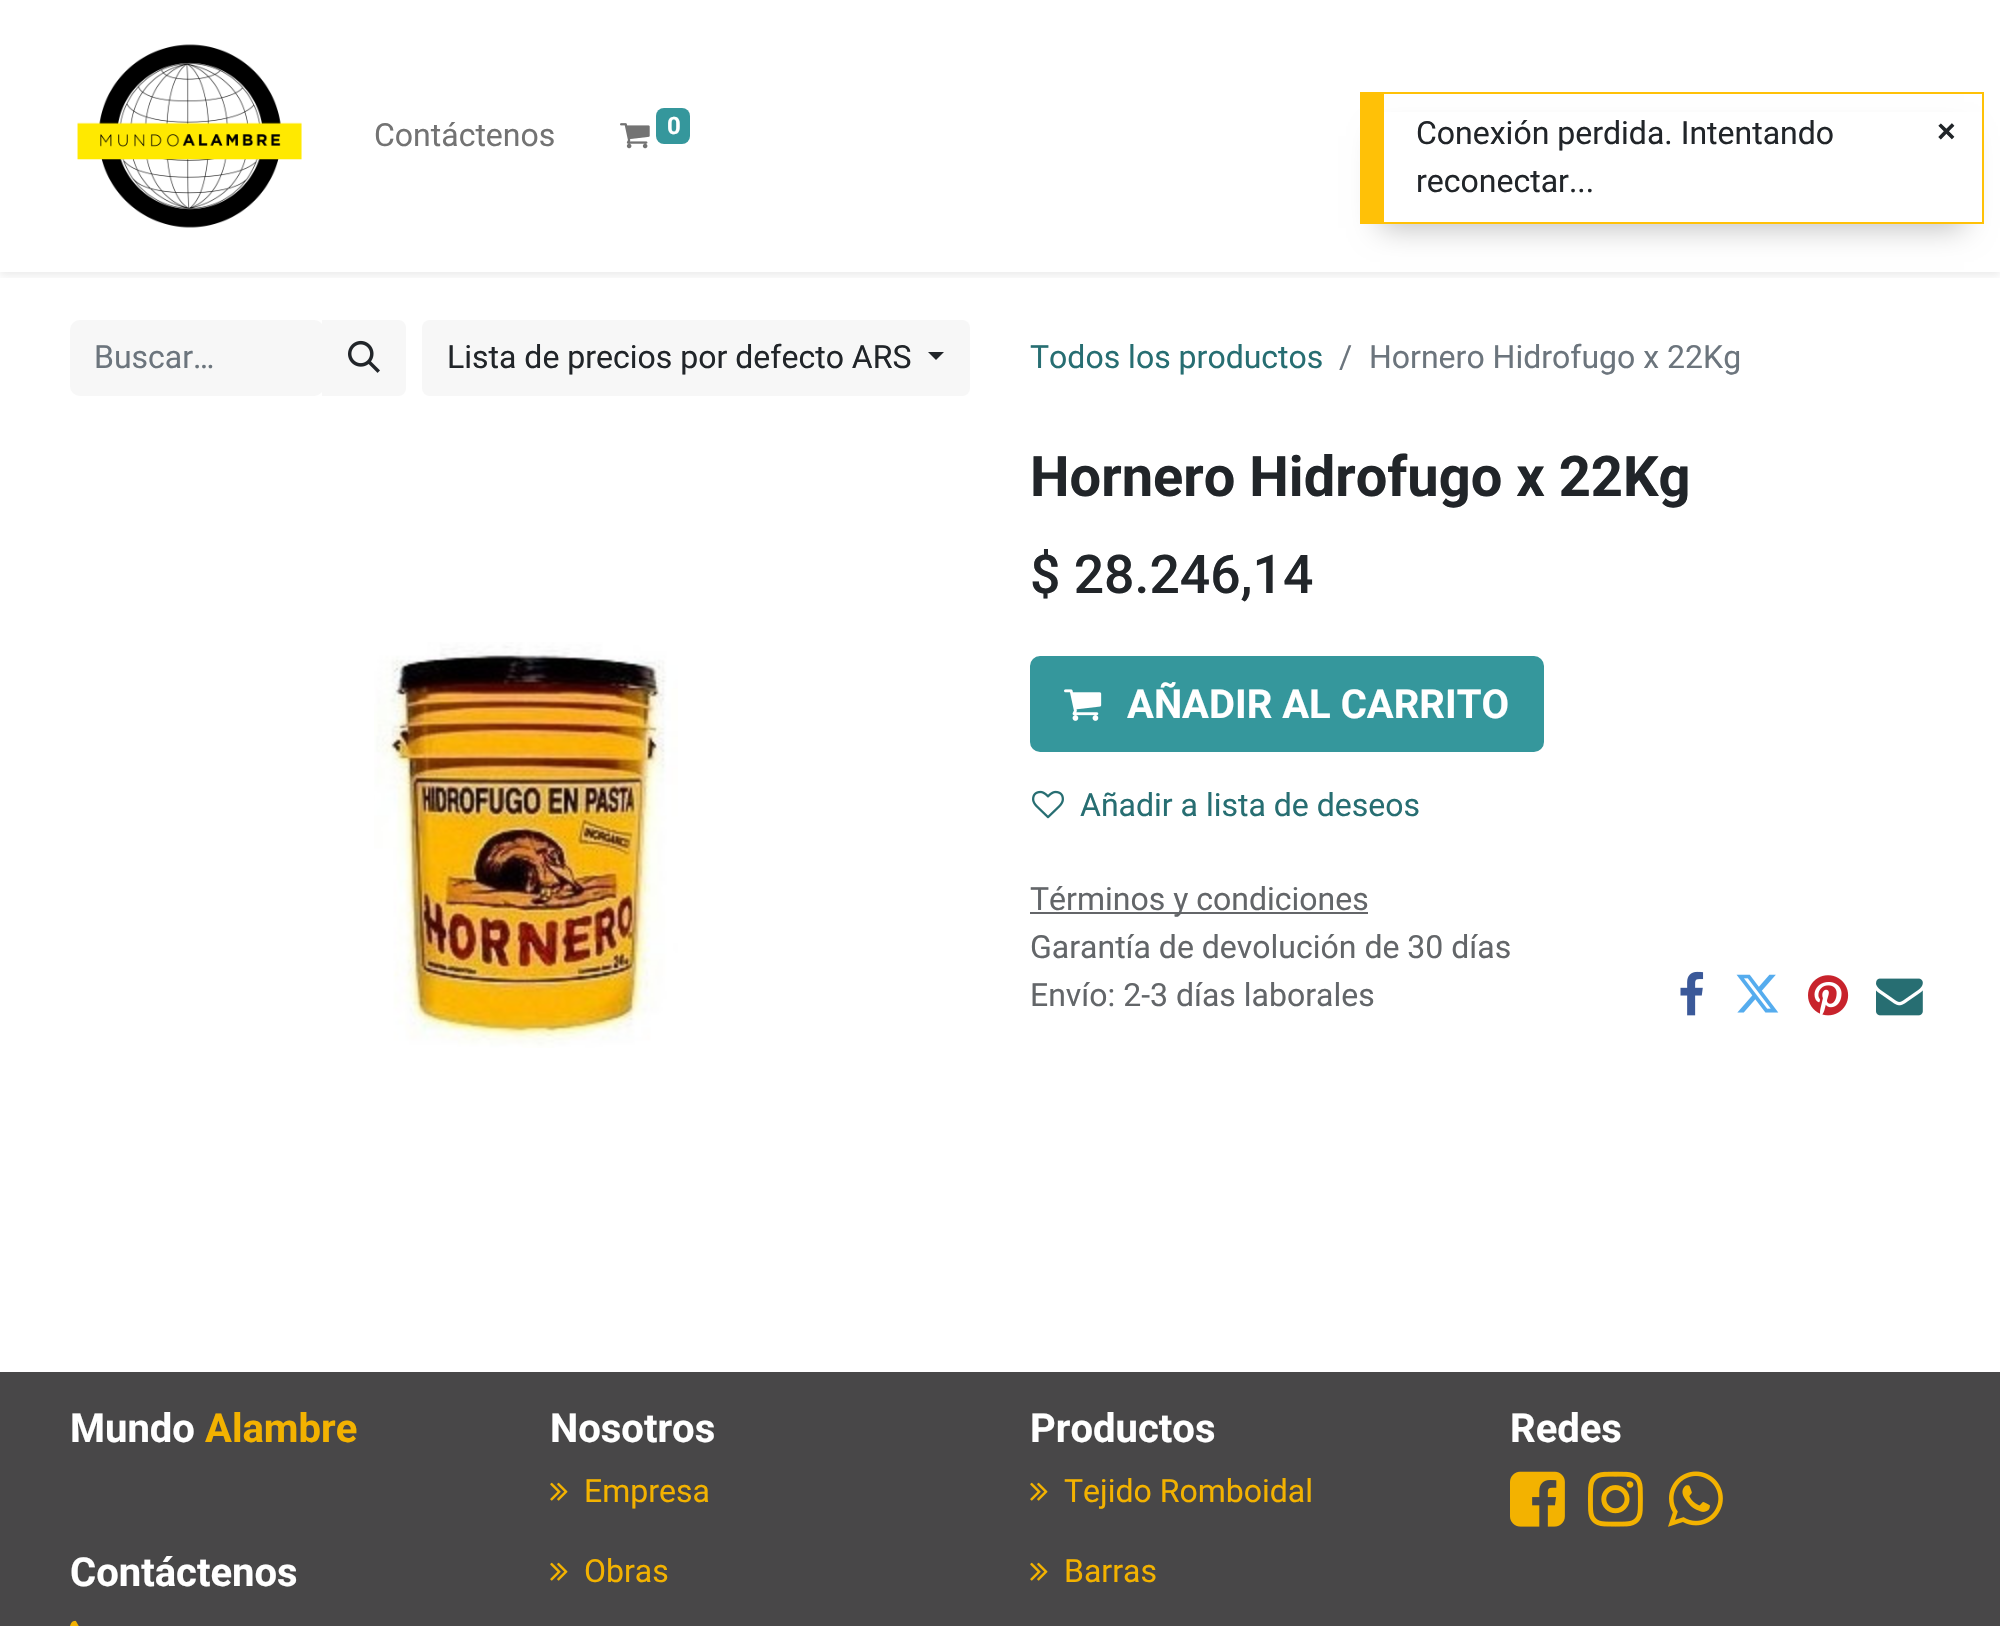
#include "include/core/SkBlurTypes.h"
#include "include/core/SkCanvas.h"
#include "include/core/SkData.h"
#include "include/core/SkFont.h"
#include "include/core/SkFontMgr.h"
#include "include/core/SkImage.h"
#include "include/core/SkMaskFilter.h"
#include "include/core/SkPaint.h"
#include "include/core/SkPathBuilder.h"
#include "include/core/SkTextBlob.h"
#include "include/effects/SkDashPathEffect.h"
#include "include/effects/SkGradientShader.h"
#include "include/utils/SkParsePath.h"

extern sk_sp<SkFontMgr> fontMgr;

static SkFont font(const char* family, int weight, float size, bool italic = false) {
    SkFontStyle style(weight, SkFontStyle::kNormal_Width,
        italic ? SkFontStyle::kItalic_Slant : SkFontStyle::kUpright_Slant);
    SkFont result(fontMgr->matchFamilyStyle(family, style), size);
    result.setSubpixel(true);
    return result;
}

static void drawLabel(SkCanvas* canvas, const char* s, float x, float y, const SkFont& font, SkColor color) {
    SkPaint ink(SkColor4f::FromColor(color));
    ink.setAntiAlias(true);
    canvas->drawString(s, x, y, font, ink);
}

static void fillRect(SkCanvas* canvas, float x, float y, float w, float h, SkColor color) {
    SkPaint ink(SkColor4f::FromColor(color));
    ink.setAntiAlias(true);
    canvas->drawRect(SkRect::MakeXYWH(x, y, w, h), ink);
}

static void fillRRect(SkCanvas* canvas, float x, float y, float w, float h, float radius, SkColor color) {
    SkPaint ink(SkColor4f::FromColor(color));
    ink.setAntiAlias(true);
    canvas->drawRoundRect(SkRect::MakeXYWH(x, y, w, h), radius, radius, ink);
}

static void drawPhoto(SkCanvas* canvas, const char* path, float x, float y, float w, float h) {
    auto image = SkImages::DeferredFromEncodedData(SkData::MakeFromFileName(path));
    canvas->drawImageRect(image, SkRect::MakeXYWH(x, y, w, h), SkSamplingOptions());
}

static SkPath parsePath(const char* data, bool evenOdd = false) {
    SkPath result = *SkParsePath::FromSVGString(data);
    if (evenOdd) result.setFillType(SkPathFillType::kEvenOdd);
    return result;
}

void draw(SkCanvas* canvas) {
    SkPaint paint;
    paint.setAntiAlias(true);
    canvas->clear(0xFFFFFFFF);
    canvas->save();
    canvas->clipRect(SkRect::MakeXYWH(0, 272, 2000, 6));
    paint.setColor(0x12000000);
    paint.setMaskFilter(SkMaskFilter::MakeBlur(kNormal_SkBlurStyle, 4));
    canvas->drawRect(SkRect::MakeXYWH(0, 4, 2000, 272), paint);
    paint.setMaskFilter(nullptr);
    canvas->restore();
    drawPhoto(canvas, "assets/img1.png", 77, 44, 225, 184);
    SkFont font1 = font("Roboto", 400, 32);
    drawLabel(canvas, "Contáctenos", 374, 146, font1, 0xFF737373);
    drawPhoto(canvas, "assets/img2.png", 620, 123, 30, 26);
    fillRRect(canvas, 656, 108, 34, 36, 8, 0xFF35979C);
    SkFont font2 = font("Roboto", 700, 24);
    drawLabel(canvas, "0", 667, 134, font2, 0xFFFFFFFF);
    fillRRect(canvas, 70, 320, 254, 76, 10, 0xFFF7F7F7);
    drawLabel(canvas, "Buscar…", 94, 368, font1, 0xFF6C757D);
    paint.setColor(0xFFF7F7F7);
    canvas->drawPath(parsePath("M322 320H398C402.5 320 406 323.5 406 328V388C406 392.5 402.5 396 398 396H322Z"), paint);
    drawPhoto(canvas, "assets/img3.png", 348, 340, 32, 33);
    fillRRect(canvas, 422, 320, 548, 76, 8, 0xFFF7F7F7);
    drawLabel(canvas, "Lista de precios por defecto ARS", 447, 368, font1, 0xFF212529);
    paint.setColor(0xFF212529);
    canvas->drawPath(parsePath("M928 352H944L936 360Z"), paint);
    drawLabel(canvas, "Todos los productos", 1030, 368, font1, 0xFF276E72);
    drawLabel(canvas, "/", 1339, 368, font1, 0xFF6C757D);
    drawLabel(canvas, "Hornero Hidrofugo x 22Kg", 1369, 368, font1, 0xFF6C757D);
    drawPhoto(canvas, "assets/img4.png", 374, 642, 304, 406);
    SkFont font3 = font("Roboto", 700, 56);
    drawLabel(canvas, "Hornero Hidrofugo x 22Kg", 1030, 496, font3, 0xFF212529);
    SkFont font4 = font("Roboto", 500, 53.5f);
    drawLabel(canvas, "$ 28.246,14", 1030, 593, font4, 0xFF212529);
    paint.setColor(0xFF35979C);
    canvas->drawRoundRect(SkRect::MakeXYWH(1031, 657, 512, 94), 9, 9, paint);
    paint.setStroke(true);
    paint.setStrokeWidth(2);
    canvas->drawRoundRect(SkRect::MakeXYWH(1031, 657, 512, 94), 9, 9, paint);
    drawPhoto(canvas, "assets/img5.png", 1064, 689, 38, 32);
    SkFont font5 = font("Roboto", 700, 40);
    drawLabel(canvas, "AÑADIR AL CARRITO", 1127, 718, font5, 0xFFFFFFFF);
    drawPhoto(canvas, "assets/img6.png", 1032, 790, 32, 29);
    drawLabel(canvas, "Añadir a lista de deseos", 1080, 816, font1, 0xFF276E72);
    fillRect(canvas, 1030, 912, 338, 2, 0xFF646669);
    drawLabel(canvas, "Términos y condiciones", 1030, 910, font1, 0xFF636669);
    drawLabel(canvas, "Garantía de devolución de 30 días", 1030, 958, font1, 0xFF636669);
    drawLabel(canvas, "Envío: 2-3 días laborales", 1030, 1006, font1, 0xFF636669);
    drawPhoto(canvas, "assets/img7.png", 1680, 971, 24, 45);
    drawPhoto(canvas, "assets/img8.png", 1736, 974, 43, 39);
    drawPhoto(canvas, "assets/img9.png", 1808, 975, 41, 41);
    drawPhoto(canvas, "assets/img10.png", 1876, 978, 47, 38);
    fillRect(canvas, 0, 1372, 2000, 254, 0xFF484748);
    drawLabel(canvas, "Mundo", 70, 1442, font5, 0xFFFFFFFF);
    drawLabel(canvas, "Alambre", 205, 1442, font5, 0xFFF3B200);
    drawLabel(canvas, "Contáctenos", 70, 1586, font5, 0xFFFFFFFF);
    drawPhoto(canvas, "assets/img11.png", 70, 1620, 9, 6);
    drawLabel(canvas, "Nosotros", 550, 1442, font5, 0xFFFFFFFF);
    drawPhoto(canvas, "assets/img12.png", 550, 1482, 18, 19);
    drawLabel(canvas, "Empresa", 584, 1502, font1, 0xFFF3B200);
    drawPhoto(canvas, "assets/img12.png", 550, 1562, 18, 19);
    drawLabel(canvas, "Obras", 584, 1582, font1, 0xFFF3B200);
    drawLabel(canvas, "Productos", 1030, 1442, font5, 0xFFFFFFFF);
    drawPhoto(canvas, "assets/img12.png", 1030, 1482, 18, 19);
    drawLabel(canvas, "Tejido Romboidal", 1064, 1502, font1, 0xFFF3B200);
    drawPhoto(canvas, "assets/img12.png", 1030, 1562, 18, 19);
    drawLabel(canvas, "Barras", 1064, 1582, font1, 0xFFF3B200);
    drawLabel(canvas, "Redes", 1510, 1442, font5, 0xFFFFFFFF);
    drawPhoto(canvas, "assets/img13.png", 1510, 1471, 55, 56);
    drawPhoto(canvas, "assets/img14.png", 1588, 1471, 55, 56);
    drawPhoto(canvas, "assets/img15.png", 1668, 1471, 55, 56);
    paint.setStroke(false);
    paint.setColor(0x40000000);
    paint.setMaskFilter(SkMaskFilter::MakeBlur(kNormal_SkBlurStyle, 14));
    canvas->drawRect(SkRect::MakeXYWH(1380, 136, 584, 92), paint);
    paint.setMaskFilter(nullptr);
    fillRect(canvas, 1384, 112, 598, 110, 0xFFFFFFFF);
    fillRect(canvas, 1384, 92, 600, 2, 0xFFFFC107);
    fillRect(canvas, 1982, 92, 2, 132, 0xFFFFC107);
    fillRect(canvas, 1384, 222, 600, 2, 0xFFFFC107);
    fillRect(canvas, 1360, 92, 24, 132, 0xFFFFC107);
    drawLabel(canvas, "Conexión perdida. Intentando", 1416, 144, font1, 0xFF212529);
    drawLabel(canvas, "reconectar...", 1416, 192, font1, 0xFF212529);
    SkFont font6 = font("Liberation Sans", 700, 32);
    drawLabel(canvas, "×", 1937, 142, font6, 0xFF212529);
}
